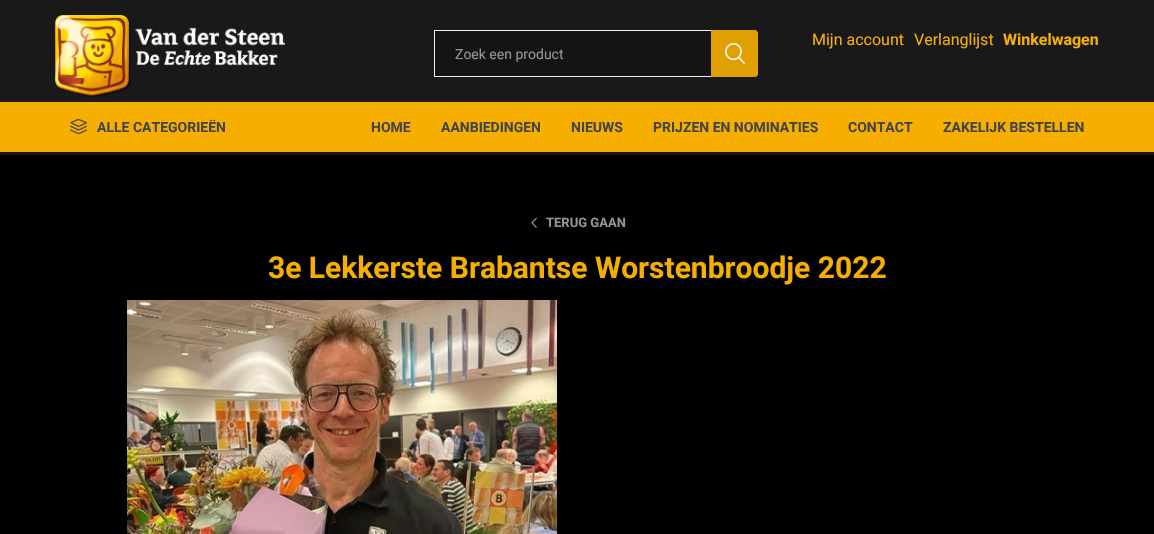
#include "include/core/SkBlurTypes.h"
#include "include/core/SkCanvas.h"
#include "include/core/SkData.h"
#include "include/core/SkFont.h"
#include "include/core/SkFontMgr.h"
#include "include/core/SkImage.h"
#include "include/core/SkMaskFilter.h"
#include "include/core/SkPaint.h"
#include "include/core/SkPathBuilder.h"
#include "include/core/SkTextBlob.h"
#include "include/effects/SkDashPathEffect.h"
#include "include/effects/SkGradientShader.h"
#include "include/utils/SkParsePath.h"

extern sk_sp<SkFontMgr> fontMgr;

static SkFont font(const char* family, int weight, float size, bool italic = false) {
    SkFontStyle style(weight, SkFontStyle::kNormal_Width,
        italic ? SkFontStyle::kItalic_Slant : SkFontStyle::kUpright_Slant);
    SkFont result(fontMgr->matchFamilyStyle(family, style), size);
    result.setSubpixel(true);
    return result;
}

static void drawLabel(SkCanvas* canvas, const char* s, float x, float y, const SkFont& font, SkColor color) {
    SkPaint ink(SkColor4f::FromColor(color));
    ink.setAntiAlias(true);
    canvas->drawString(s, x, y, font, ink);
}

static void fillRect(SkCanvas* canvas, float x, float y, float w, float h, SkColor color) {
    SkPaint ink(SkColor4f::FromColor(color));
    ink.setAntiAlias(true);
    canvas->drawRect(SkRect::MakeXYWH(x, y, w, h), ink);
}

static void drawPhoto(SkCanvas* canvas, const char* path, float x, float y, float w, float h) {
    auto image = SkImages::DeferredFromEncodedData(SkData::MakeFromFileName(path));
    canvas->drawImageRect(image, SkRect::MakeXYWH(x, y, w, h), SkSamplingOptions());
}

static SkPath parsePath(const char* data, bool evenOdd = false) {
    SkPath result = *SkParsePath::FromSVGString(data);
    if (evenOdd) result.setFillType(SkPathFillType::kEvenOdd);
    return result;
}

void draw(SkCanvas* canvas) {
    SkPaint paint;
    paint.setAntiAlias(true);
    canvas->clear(0xFF191919);
    drawPhoto(canvas, "assets/img1.png", 55, 15, 230, 82);
    SkFont font1 = font("Roboto", 400, 16);
    drawLabel(canvas, "Mijn account", 812, 45, font1, 0xFFF6AF00);
    drawLabel(canvas, "Verlanglijst", 914, 45, font1, 0xFFF6AF00);
    SkFont font2 = font("Roboto", 700, 16);
    drawLabel(canvas, "Winkelwagen", 1003, 45, font2, 0xFFF6AF00);
    fillRect(canvas, 435, 31, 276, 45, 0xFF141414);
    fillRect(canvas, 434, 30, 277, 1, 0xFFEEEEEE);
    fillRect(canvas, 434, 76, 277, 1, 0xFFEEEEEE);
    fillRect(canvas, 434, 30, 1, 47, 0xFFEEEEEE);
    SkFont font3 = font("Roboto", 400, 14);
    drawLabel(canvas, "Zoek een product", 455, 59, font3, 0xFF959595);
    paint.setColor(0xFFE0A003);
    canvas->drawPath(parsePath("M711 30H755C756.5 30 758 31.5 758 33V74C758 75.5 756.5 77 755 77H711Z"), paint);
    drawPhoto(canvas, "assets/img2.png", 725, 43, 20, 21);
    fillRect(canvas, 0, 102, 1154, 50, 0xFFF6AF00);
    drawPhoto(canvas, "assets/img3.png", 70, 119, 17, 16);
    SkFont font4 = font("Roboto", 700, 14);
    drawLabel(canvas, "ALLE CATEGORIEËN", 97, 132, font4, 0xFF444444);
    drawLabel(canvas, "HOME", 371, 132, font4, 0xFF444444);
    drawLabel(canvas, "AANBIEDINGEN", 441, 132, font4, 0xFF444444);
    drawLabel(canvas, "NIEUWS", 571, 132, font4, 0xFF444444);
    drawLabel(canvas, "PRIJZEN EN NOMINATIES", 653, 132, font4, 0xFF444444);
    drawLabel(canvas, "CONTACT", 848, 132, font4, 0xFF444444);
    drawLabel(canvas, "ZAKELIJK BESTELLEN", 943, 132, font4, 0xFF444444);
    fillRect(canvas, 0, 155, 1154, 379, 0xFF000000);
    drawPhoto(canvas, "assets/img4.png", 531, 217, 6, 11);
    SkFont font5 = font("Roboto", 700, 13);
    drawLabel(canvas, "TERUG GAAN", 546, 227, font5, 0xFF959595);
    SkFont font6 = font("Roboto", 700, 30);
    drawLabel(canvas, "3e Lekkerste Brabantse Worstenbroodje 2022", 268, 278, font6, 0xFFF6AF00);
    drawPhoto(canvas, "assets/img5.png", 127, 300, 430, 234);
}
